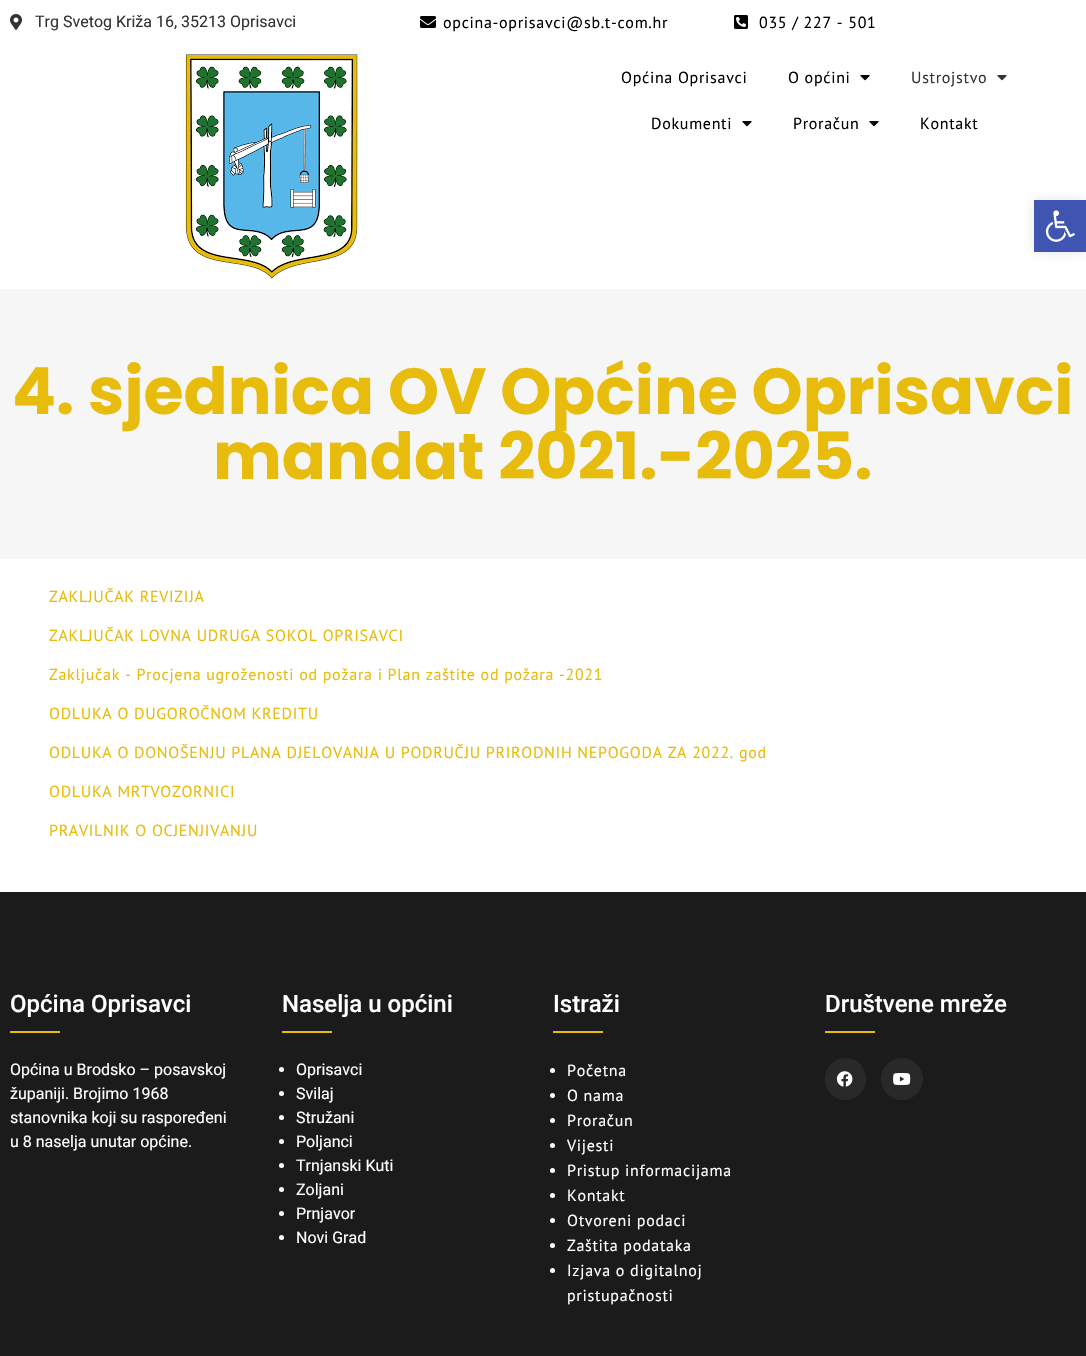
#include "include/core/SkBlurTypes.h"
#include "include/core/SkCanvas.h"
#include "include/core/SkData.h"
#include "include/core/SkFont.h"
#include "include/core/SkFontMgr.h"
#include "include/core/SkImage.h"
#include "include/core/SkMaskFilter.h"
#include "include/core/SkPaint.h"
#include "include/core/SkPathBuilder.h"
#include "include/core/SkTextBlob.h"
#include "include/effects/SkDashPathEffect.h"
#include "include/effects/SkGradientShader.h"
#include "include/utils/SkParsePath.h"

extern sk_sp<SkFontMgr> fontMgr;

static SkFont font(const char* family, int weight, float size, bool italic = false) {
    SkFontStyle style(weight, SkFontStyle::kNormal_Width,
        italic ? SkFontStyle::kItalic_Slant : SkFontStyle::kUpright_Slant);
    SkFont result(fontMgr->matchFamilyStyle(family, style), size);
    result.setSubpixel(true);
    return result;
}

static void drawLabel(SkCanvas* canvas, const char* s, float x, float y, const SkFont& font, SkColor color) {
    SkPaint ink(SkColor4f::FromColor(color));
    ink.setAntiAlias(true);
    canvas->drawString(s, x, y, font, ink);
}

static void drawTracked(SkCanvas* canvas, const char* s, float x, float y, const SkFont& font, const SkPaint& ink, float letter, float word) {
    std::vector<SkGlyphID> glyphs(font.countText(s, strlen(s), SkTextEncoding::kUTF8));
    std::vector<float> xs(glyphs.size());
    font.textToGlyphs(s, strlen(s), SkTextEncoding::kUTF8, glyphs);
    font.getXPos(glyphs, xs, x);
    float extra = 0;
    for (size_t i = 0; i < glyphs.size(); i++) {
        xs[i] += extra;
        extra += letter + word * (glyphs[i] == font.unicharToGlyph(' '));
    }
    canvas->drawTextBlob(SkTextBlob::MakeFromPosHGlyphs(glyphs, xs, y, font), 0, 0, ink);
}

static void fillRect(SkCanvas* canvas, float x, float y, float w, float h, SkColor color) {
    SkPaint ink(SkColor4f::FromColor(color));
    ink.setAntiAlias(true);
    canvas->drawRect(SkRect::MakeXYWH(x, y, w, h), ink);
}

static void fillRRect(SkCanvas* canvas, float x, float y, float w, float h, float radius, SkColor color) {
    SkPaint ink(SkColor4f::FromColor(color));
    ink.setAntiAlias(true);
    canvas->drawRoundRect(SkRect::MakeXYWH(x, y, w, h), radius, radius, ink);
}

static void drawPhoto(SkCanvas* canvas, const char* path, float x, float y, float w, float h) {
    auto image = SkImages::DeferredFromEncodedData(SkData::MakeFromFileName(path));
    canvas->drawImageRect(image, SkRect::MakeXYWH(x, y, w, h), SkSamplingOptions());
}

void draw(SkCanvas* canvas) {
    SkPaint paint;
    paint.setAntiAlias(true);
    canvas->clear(0xFFFFFFFF);
    drawPhoto(canvas, "assets/img1.png", 10, 14, 12, 16);
    SkFont font1 = font("Roboto", 400, 16);
    drawLabel(canvas, "Trg Svetog Križa 16, 35213 Oprisavci", 35, 27, font1, 0xFF333333);
    drawPhoto(canvas, "assets/img2.png", 420, 16, 16, 12);
    SkFont font2 = font("PT Sans", 400, 16);
    paint.setColor(0xFF020101);
    drawTracked(canvas, "opcina-oprisavci@sb.t-com.hr", 443, 28, font2, paint, 0.7f, 0);
    drawPhoto(canvas, "assets/img3.png", 734, 15, 14, 14);
    drawTracked(canvas, "035 / 227 - 501", 759, 28, font2, paint, 0.7f, 0);
    drawPhoto(canvas, "assets/img4.png", 185, 54, 173, 225);
    drawTracked(canvas, "Općina Oprisavci", 621, 83, font2, paint, 0.7f, 0);
    drawTracked(canvas, "O općini", 788, 83, font2, paint, 0.7f, 0);
    drawPhoto(canvas, "assets/img5.png", 860, 75, 10, 6);
    paint.setColor(0xFF333333);
    drawTracked(canvas, "Ustrojstvo", 911, 83, font2, paint, 0.7f, 0);
    drawPhoto(canvas, "assets/img6.png", 997, 75, 10, 6);
    paint.setColor(0xFF020101);
    drawTracked(canvas, "Dokumenti", 651, 129, font2, paint, 0.7f, 0);
    drawPhoto(canvas, "assets/img5.png", 742, 121, 10, 6);
    drawTracked(canvas, "Proračun", 793, 129, font2, paint, 0.7f, 0);
    drawPhoto(canvas, "assets/img5.png", 869, 121, 10, 6);
    drawTracked(canvas, "Kontakt", 920, 129, font2, paint, 0.7f, 0);
    paint.setColor(0x1A000000);
    paint.setMaskFilter(SkMaskFilter::MakeBlur(kNormal_SkBlurStyle, 5));
    canvas->drawRect(SkRect::MakeXYWH(1034, 200, 52, 52), paint);
    paint.setMaskFilter(nullptr);
    fillRect(canvas, 1034, 200, 52, 52, 0xFF4054B2);
    drawPhoto(canvas, "assets/img7.png", 1045, 210, 30, 32);
    fillRect(canvas, 0, 289, 1086, 270, 0xFFF6F6F6);
    SkFont font3 = font("Poppins", 700, 65);
    drawLabel(canvas, "4. sjednica OV Općine Oprisavci", 12, 414, font3, 0xFFE8BC0C);
    drawLabel(canvas, "mandat 2021.-2025.", 213, 479, font3, 0xFFE8BC0C);
    paint.setColor(0xFFE8BC0C);
    drawTracked(canvas, "ZAKLJUČAK REVIZIJA", 49, 602, font2, paint, 0.7f, 0);
    drawTracked(canvas, "ZAKLJUČAK LOVNA UDRUGA SOKOL OPRISAVCI", 49, 641, font2, paint, 0.7f, 0);
    drawTracked(canvas, "Zaključak - Procjena ugroženosti od požara i Plan zaštite od požara -2021", 49, 680, font2, paint, 0.7f, 0);
    drawTracked(canvas, "ODLUKA O DUGOROČNOM KREDITU", 49, 719, font2, paint, 0.7f, 0);
    drawTracked(canvas, "ODLUKA O DONOŠENJU PLANA DJELOVANJA U PODRUČJU PRIRODNIH NEPOGODA ZA 2022. god", 49, 758, font2, paint, 0.7f, 0);
    drawTracked(canvas, "ODLUKA MRTVOZORNICI", 49, 797, font2, paint, 0.7f, 0);
    drawTracked(canvas, "PRAVILNIK O OCJENJIVANJU", 49, 836, font2, paint, 0.7f, 0);
    fillRect(canvas, 0, 892, 1086, 464, 0xFF1B1B1B);
    SkFont font4 = font("Roboto", 500, 24);
    drawLabel(canvas, "Općina Oprisavci", 10, 1012, font4, 0xFFFFFFFF);
    fillRect(canvas, 10, 1031, 50, 2, 0xFFE8BC0C);
    drawLabel(canvas, "Općina u Brodsko – posavskoj", 10, 1075, font1, 0xFFFFFFFF);
    drawLabel(canvas, "županiji. Brojimo 1968", 10, 1099, font1, 0xFFFFFFFF);
    drawLabel(canvas, "stanovnika koji su raspoređeni", 10, 1123, font1, 0xFFFFFFFF);
    drawLabel(canvas, "u 8 naselja unutar općine.", 10, 1147, font1, 0xFFFFFFFF);
    drawLabel(canvas, "Naselja u općini", 282, 1012, font4, 0xFFFFFFFF);
    fillRect(canvas, 282, 1031, 50, 2, 0xFFE8BC0C);
    paint.setColor(0xFFFFFFFF);
    canvas->drawCircle(281.5f, 1069.5f, 2.5f, paint);
    drawLabel(canvas, "Oprisavci", 296, 1075, font1, 0xFFFFFFFF);
    canvas->drawCircle(281.5f, 1093.5f, 2.5f, paint);
    drawLabel(canvas, "Svilaj", 296, 1099, font1, 0xFFFFFFFF);
    canvas->drawCircle(281.5f, 1117.5f, 2.5f, paint);
    drawLabel(canvas, "Stružani", 296, 1123, font1, 0xFFFFFFFF);
    canvas->drawCircle(281.5f, 1141.5f, 2.5f, paint);
    drawLabel(canvas, "Poljanci", 296, 1147, font1, 0xFFFFFFFF);
    canvas->drawCircle(281.5f, 1165.5f, 2.5f, paint);
    drawLabel(canvas, "Trnjanski Kuti", 296, 1171, font1, 0xFFFFFFFF);
    canvas->drawCircle(281.5f, 1189.5f, 2.5f, paint);
    drawLabel(canvas, "Zoljani", 296, 1195, font1, 0xFFFFFFFF);
    canvas->drawCircle(281.5f, 1213.5f, 2.5f, paint);
    drawLabel(canvas, "Prnjavor", 296, 1219, font1, 0xFFFFFFFF);
    canvas->drawCircle(281.5f, 1237.5f, 2.5f, paint);
    drawLabel(canvas, "Novi Grad", 296, 1243, font1, 0xFFFFFFFF);
    drawLabel(canvas, "Istraži", 553, 1012, font4, 0xFFFFFFFF);
    fillRect(canvas, 553, 1031, 50, 2, 0xFFE8BC0C);
    canvas->drawCircle(552.5f, 1070.5f, 2.5f, paint);
    drawTracked(canvas, "Početna", 567, 1076, font2, paint, 0.7f, 0);
    canvas->drawCircle(552.5f, 1095.5f, 2.5f, paint);
    drawTracked(canvas, "O nama", 567, 1101, font2, paint, 0.7f, 0);
    canvas->drawCircle(552.5f, 1120.5f, 2.5f, paint);
    drawTracked(canvas, "Proračun", 567, 1126, font2, paint, 0.7f, 0);
    canvas->drawCircle(552.5f, 1145.5f, 2.5f, paint);
    drawTracked(canvas, "Vijesti", 567, 1151, font2, paint, 0.7f, 0);
    canvas->drawCircle(552.5f, 1170.5f, 2.5f, paint);
    drawTracked(canvas, "Pristup informacijama", 567, 1176, font2, paint, 0.7f, 0);
    canvas->drawCircle(552.5f, 1195.5f, 2.5f, paint);
    drawTracked(canvas, "Kontakt", 567, 1201, font2, paint, 0.7f, 0);
    canvas->drawCircle(552.5f, 1220.5f, 2.5f, paint);
    drawTracked(canvas, "Otvoreni podaci", 567, 1226, font2, paint, 0.7f, 0);
    canvas->drawCircle(552.5f, 1245.5f, 2.5f, paint);
    drawTracked(canvas, "Zaštita podataka", 567, 1251, font2, paint, 0.7f, 0);
    canvas->drawCircle(552.5f, 1270.5f, 2.5f, paint);
    drawTracked(canvas, "Izjava o digitalnoj", 567, 1276, font2, paint, 0.7f, 0);
    drawTracked(canvas, "pristupačnosti", 567, 1301, font2, paint, 0.7f, 0);
    drawLabel(canvas, "Društvene mreže", 825, 1012, font4, 0xFFFFFFFF);
    fillRect(canvas, 825, 1031, 50, 2, 0xFFE8BC0C);
    fillRRect(canvas, 825, 1058, 41, 42, 20.5f, 0xFF292929);
    drawPhoto(canvas, "assets/img8.png", 836, 1071, 17, 16);
    paint.setColor(0xFF292929);
    canvas->drawCircle(902, 1079, 21, paint);
    drawPhoto(canvas, "assets/img9.png", 893, 1073, 18, 12);
}
